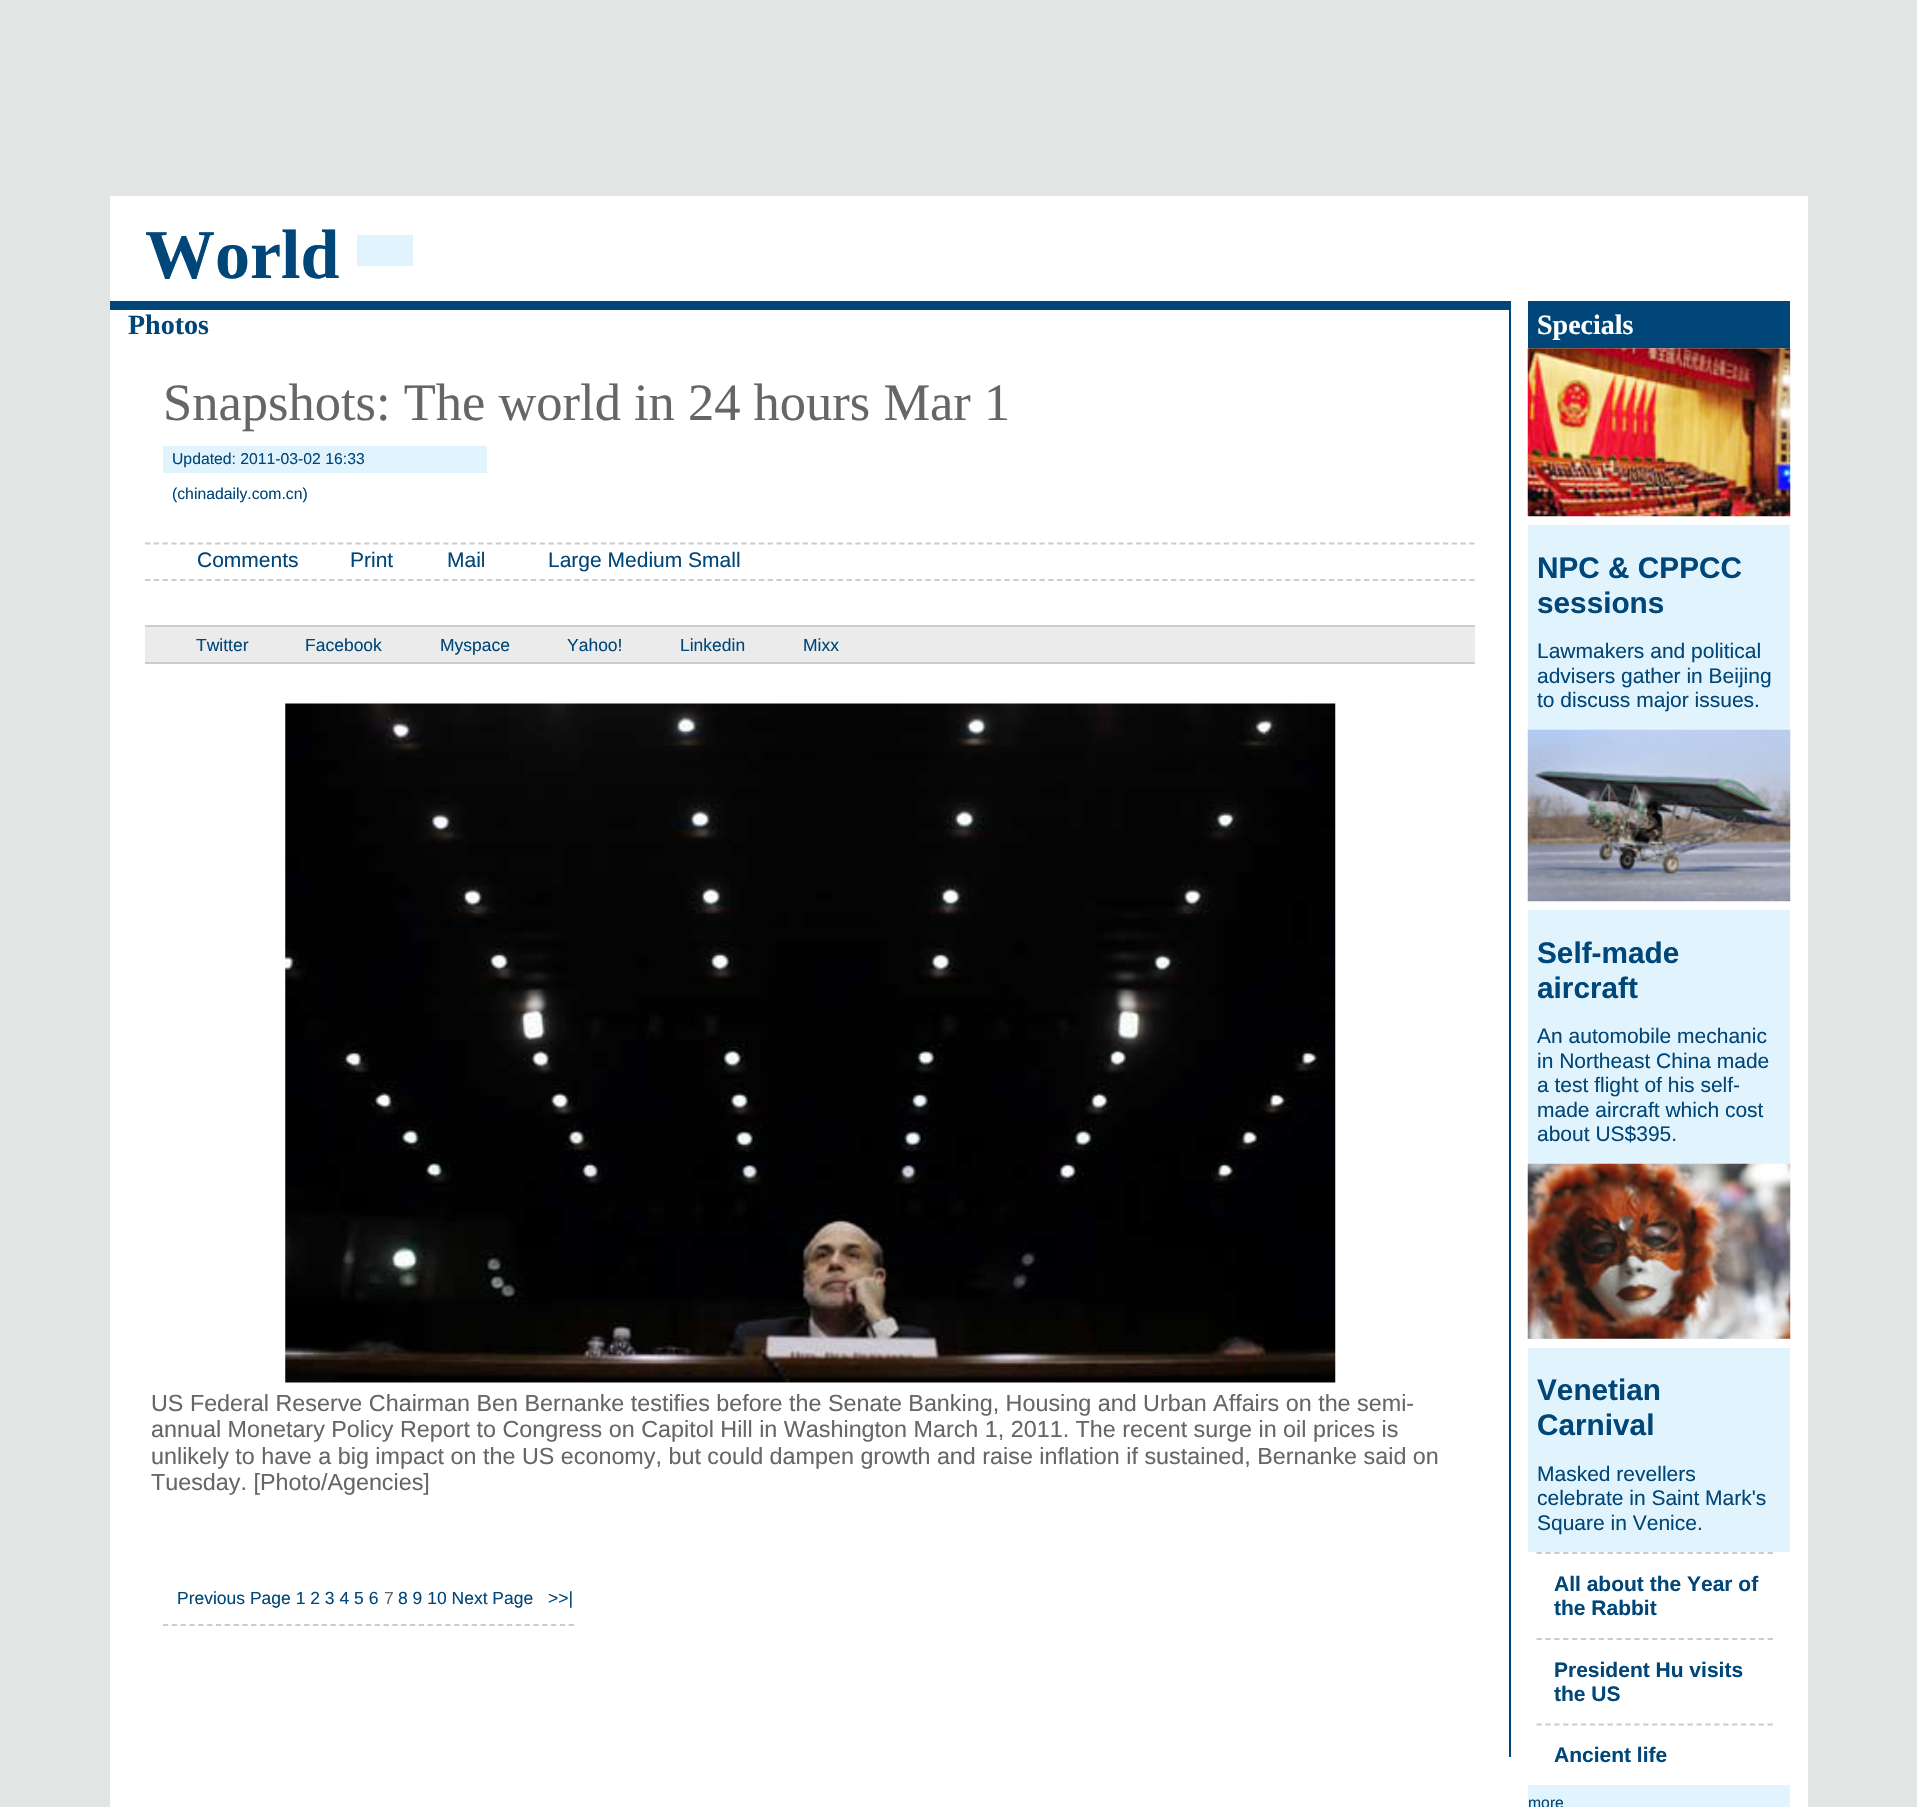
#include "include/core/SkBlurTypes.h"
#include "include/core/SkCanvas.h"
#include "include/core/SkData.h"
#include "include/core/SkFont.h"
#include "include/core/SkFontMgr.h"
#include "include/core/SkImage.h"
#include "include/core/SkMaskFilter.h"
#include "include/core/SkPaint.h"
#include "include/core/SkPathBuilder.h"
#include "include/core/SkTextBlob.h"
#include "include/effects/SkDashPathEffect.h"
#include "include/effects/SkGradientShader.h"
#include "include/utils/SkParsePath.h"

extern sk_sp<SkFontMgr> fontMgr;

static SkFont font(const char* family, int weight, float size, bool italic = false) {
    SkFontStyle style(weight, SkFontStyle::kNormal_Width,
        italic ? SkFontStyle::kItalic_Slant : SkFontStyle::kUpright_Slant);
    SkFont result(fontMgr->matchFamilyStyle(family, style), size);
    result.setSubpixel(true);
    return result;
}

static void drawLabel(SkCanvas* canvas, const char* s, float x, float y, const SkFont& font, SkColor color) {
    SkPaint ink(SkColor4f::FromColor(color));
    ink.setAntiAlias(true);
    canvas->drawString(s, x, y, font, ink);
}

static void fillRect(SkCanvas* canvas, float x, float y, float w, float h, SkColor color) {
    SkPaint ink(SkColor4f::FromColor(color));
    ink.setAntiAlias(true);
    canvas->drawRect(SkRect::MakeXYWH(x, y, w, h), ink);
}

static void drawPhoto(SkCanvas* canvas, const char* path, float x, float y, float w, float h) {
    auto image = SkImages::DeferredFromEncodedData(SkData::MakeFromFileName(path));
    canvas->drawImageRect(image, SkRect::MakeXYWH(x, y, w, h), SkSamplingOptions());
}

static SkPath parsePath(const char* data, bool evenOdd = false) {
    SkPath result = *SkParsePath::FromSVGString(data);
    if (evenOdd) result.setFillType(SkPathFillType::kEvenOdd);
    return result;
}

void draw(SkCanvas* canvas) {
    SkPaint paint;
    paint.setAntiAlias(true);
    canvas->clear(0xFFE3E4E4);
    fillRect(canvas, 110, 196, 1698, 1611, 0xFFFFFFFF);
    SkFont font1 = font("Liberation Serif", 700, 70);
    drawLabel(canvas, "World", 145, 278, font1, 0xFF004678);
    fillRect(canvas, 357, 235, 56, 31, 0xFFE1F4FD);
    fillRect(canvas, 110, 301, 1399, 9, 0xFF004678);
    fillRect(canvas, 1509, 301, 2, 1456, 0xFF004678);
    SkFont font2 = font("Liberation Serif", 700, 28);
    drawLabel(canvas, "Photos", 128, 334, font2, 0xFF004678);
    SkFont font3 = font("Liberation Serif", 400, 52.5f);
    drawLabel(canvas, "Snapshots: The world in 24 hours Mar 1", 163, 420, font3, 0xFF666666);
    fillRect(canvas, 163, 446, 324, 27, 0xFFE1F4FD);
    SkFont font4 = font("Liberation Sans", 400, 15.75f);
    drawLabel(canvas, "Updated: 2011-03-02 16:33", 172, 464, font4, 0xFF004678);
    drawLabel(canvas, "(chinadaily.com.cn)", 172, 499, font4, 0xFF004678);
    paint.setStroke(true);
    paint.setStrokeWidth(1.8f);
    paint.setColor(0xFFCCCCCC);
    paint.setPathEffect(SkDashPathEffect::Make({{5.25f, 3.52f}}, 0));
    canvas->drawPath(parsePath("M145 543.5H1475"), paint);
    paint.setPathEffect(nullptr);
    paint.setPathEffect(SkDashPathEffect::Make({{5.25f, 3.52f}}, 0));
    canvas->drawPath(parsePath("M145 580H1475"), paint);
    paint.setPathEffect(nullptr);
    SkFont font5 = font("Liberation Sans", 400, 21);
    drawLabel(canvas, "Comments", 197, 567, font5, 0xFF004678);
    drawLabel(canvas, "Print", 350, 567, font5, 0xFF004678);
    drawLabel(canvas, "Mail", 447, 567, font5, 0xFF004678);
    drawLabel(canvas, "Large Medium Small", 548, 567, font5, 0xFF004678);
    fillRect(canvas, 145, 627, 1330, 35, 0xFFEBEBEB);
    fillRect(canvas, 145, 625, 1330, 2, 0xFFCCCCCC);
    fillRect(canvas, 145, 662, 1330, 2, 0xFFCCCCCC);
    SkFont font6 = font("Liberation Sans", 400, 17.5f);
    drawLabel(canvas, "Twitter", 196, 651, font6, 0xFF004678);
    drawLabel(canvas, "Facebook", 305, 651, font6, 0xFF004678);
    drawLabel(canvas, "Myspace", 440, 651, font6, 0xFF004678);
    drawLabel(canvas, "Yahoo!", 567, 651, font6, 0xFF004678);
    drawLabel(canvas, "Linkedin", 680, 651, font6, 0xFF004678);
    drawLabel(canvas, "Mixx", 803, 651, font6, 0xFF004678);
    drawPhoto(canvas, "assets/img1.png", 285, 703, 1051, 680);
    SkFont font7 = font("Liberation Sans", 400, 23.33f);
    drawLabel(canvas, "US Federal Reserve Chairman Ben Bernanke testifies before the Senate Banking, Housing and Urban Affairs on the semi-", 151, 1411, font7, 0xFF666666);
    drawLabel(canvas, "annual Monetary Policy Report to Congress on Capitol Hill in Washington March 1, 2011. The recent surge in oil prices is", 151, 1437, font7, 0xFF666666);
    drawLabel(canvas, "unlikely to have a big impact on the US economy, but could dampen growth and raise inflation if sustained, Bernanke said on", 151, 1464, font7, 0xFF666666);
    drawLabel(canvas, "Tuesday. [Photo/Agencies]", 151, 1490, font7, 0xFF666666);
    paint.setPathEffect(SkDashPathEffect::Make({{5.25f, 3.57f}}, 0));
    canvas->drawPath(parsePath("M163 1625H574"), paint);
    paint.setPathEffect(nullptr);
    drawLabel(canvas, "Previous Page 1 2 3 4 5 6", 177, 1604, font6, 0xFF004678);
    drawLabel(canvas, "7", 384, 1604, font6, 0xFF666666);
    drawLabel(canvas, "8 9 10 Next Page", 398, 1604, font6, 0xFF004678);
    drawLabel(canvas, ">>|", 548, 1604, font6, 0xFF004678);
    fillRect(canvas, 1528, 348, 262, 1459, 0xFFE1F4FD);
    fillRect(canvas, 1528, 301, 262, 47, 0xFF004678);
    drawLabel(canvas, "Specials", 1537, 334, font2, 0xFFFFFFFF);
    fillRect(canvas, 1528, 516, 262, 9, 0xFFFFFFFF);
    drawPhoto(canvas, "assets/img2.png", 1527, 348, 264, 169);
    SkFont font8 = font("Liberation Sans", 700, 29.75f);
    drawLabel(canvas, "NPC & CPPCC", 1537, 578, font8, 0xFF004678);
    drawLabel(canvas, "sessions", 1537, 613, font8, 0xFF004678);
    drawLabel(canvas, "Lawmakers and political", 1537, 658, font5, 0xFF004678);
    drawLabel(canvas, "advisers gather in Beijing", 1537, 683, font5, 0xFF004678);
    drawLabel(canvas, "to discuss major issues.", 1537, 707, font5, 0xFF004678);
    fillRect(canvas, 1528, 901, 262, 9, 0xFFFFFFFF);
    drawPhoto(canvas, "assets/img3.png", 1527, 729, 264, 173);
    drawLabel(canvas, "Self-made", 1537, 963, font8, 0xFF004678);
    drawLabel(canvas, "aircraft", 1537, 998, font8, 0xFF004678);
    drawLabel(canvas, "An automobile mechanic", 1537, 1043, font5, 0xFF004678);
    drawLabel(canvas, "in Northeast China made", 1537, 1068, font5, 0xFF004678);
    drawLabel(canvas, "a test flight of his self-", 1537, 1092, font5, 0xFF004678);
    drawLabel(canvas, "made aircraft which cost", 1537, 1117, font5, 0xFF004678);
    drawLabel(canvas, "about US$395.", 1537, 1141, font5, 0xFF004678);
    drawPhoto(canvas, "assets/img4.png", 1527, 1163, 264, 176);
    fillRect(canvas, 1528, 1339, 262, 9, 0xFFFFFFFF);
    drawLabel(canvas, "Venetian", 1537, 1400, font8, 0xFF004678);
    drawLabel(canvas, "Carnival", 1537, 1435, font8, 0xFF004678);
    drawLabel(canvas, "Masked revellers", 1537, 1481, font5, 0xFF004678);
    drawLabel(canvas, "celebrate in Saint Mark's", 1537, 1505, font5, 0xFF004678);
    drawLabel(canvas, "Square in Venice.", 1537, 1530, font5, 0xFF004678);
    fillRect(canvas, 1528, 1552, 262, 233, 0xFFFFFFFF);
    paint.setPathEffect(SkDashPathEffect::Make({{5.25f, 3.64f}}, 0));
    canvas->drawPath(parsePath("M1536.5 1553H1773"), paint);
    paint.setPathEffect(nullptr);
    SkFont font9 = font("Liberation Sans", 700, 21);
    drawLabel(canvas, "All about the Year of", 1554, 1591, font9, 0xFF004678);
    drawLabel(canvas, "the Rabbit", 1554, 1615, font9, 0xFF004678);
    paint.setPathEffect(SkDashPathEffect::Make({{5.25f, 3.64f}}, 0));
    canvas->drawPath(parsePath("M1536.5 1639H1773"), paint);
    paint.setPathEffect(nullptr);
    drawLabel(canvas, "President Hu visits", 1554, 1677, font9, 0xFF004678);
    drawLabel(canvas, "the US", 1554, 1701, font9, 0xFF004678);
    paint.setPathEffect(SkDashPathEffect::Make({{5.25f, 3.64f}}, 0));
    canvas->drawPath(parsePath("M1536.5 1724.5H1773"), paint);
    paint.setPathEffect(nullptr);
    drawLabel(canvas, "Ancient life", 1554, 1762, font9, 0xFF004678);
    drawLabel(canvas, "more", 1528, 1808, font4, 0xFF004678);
}
